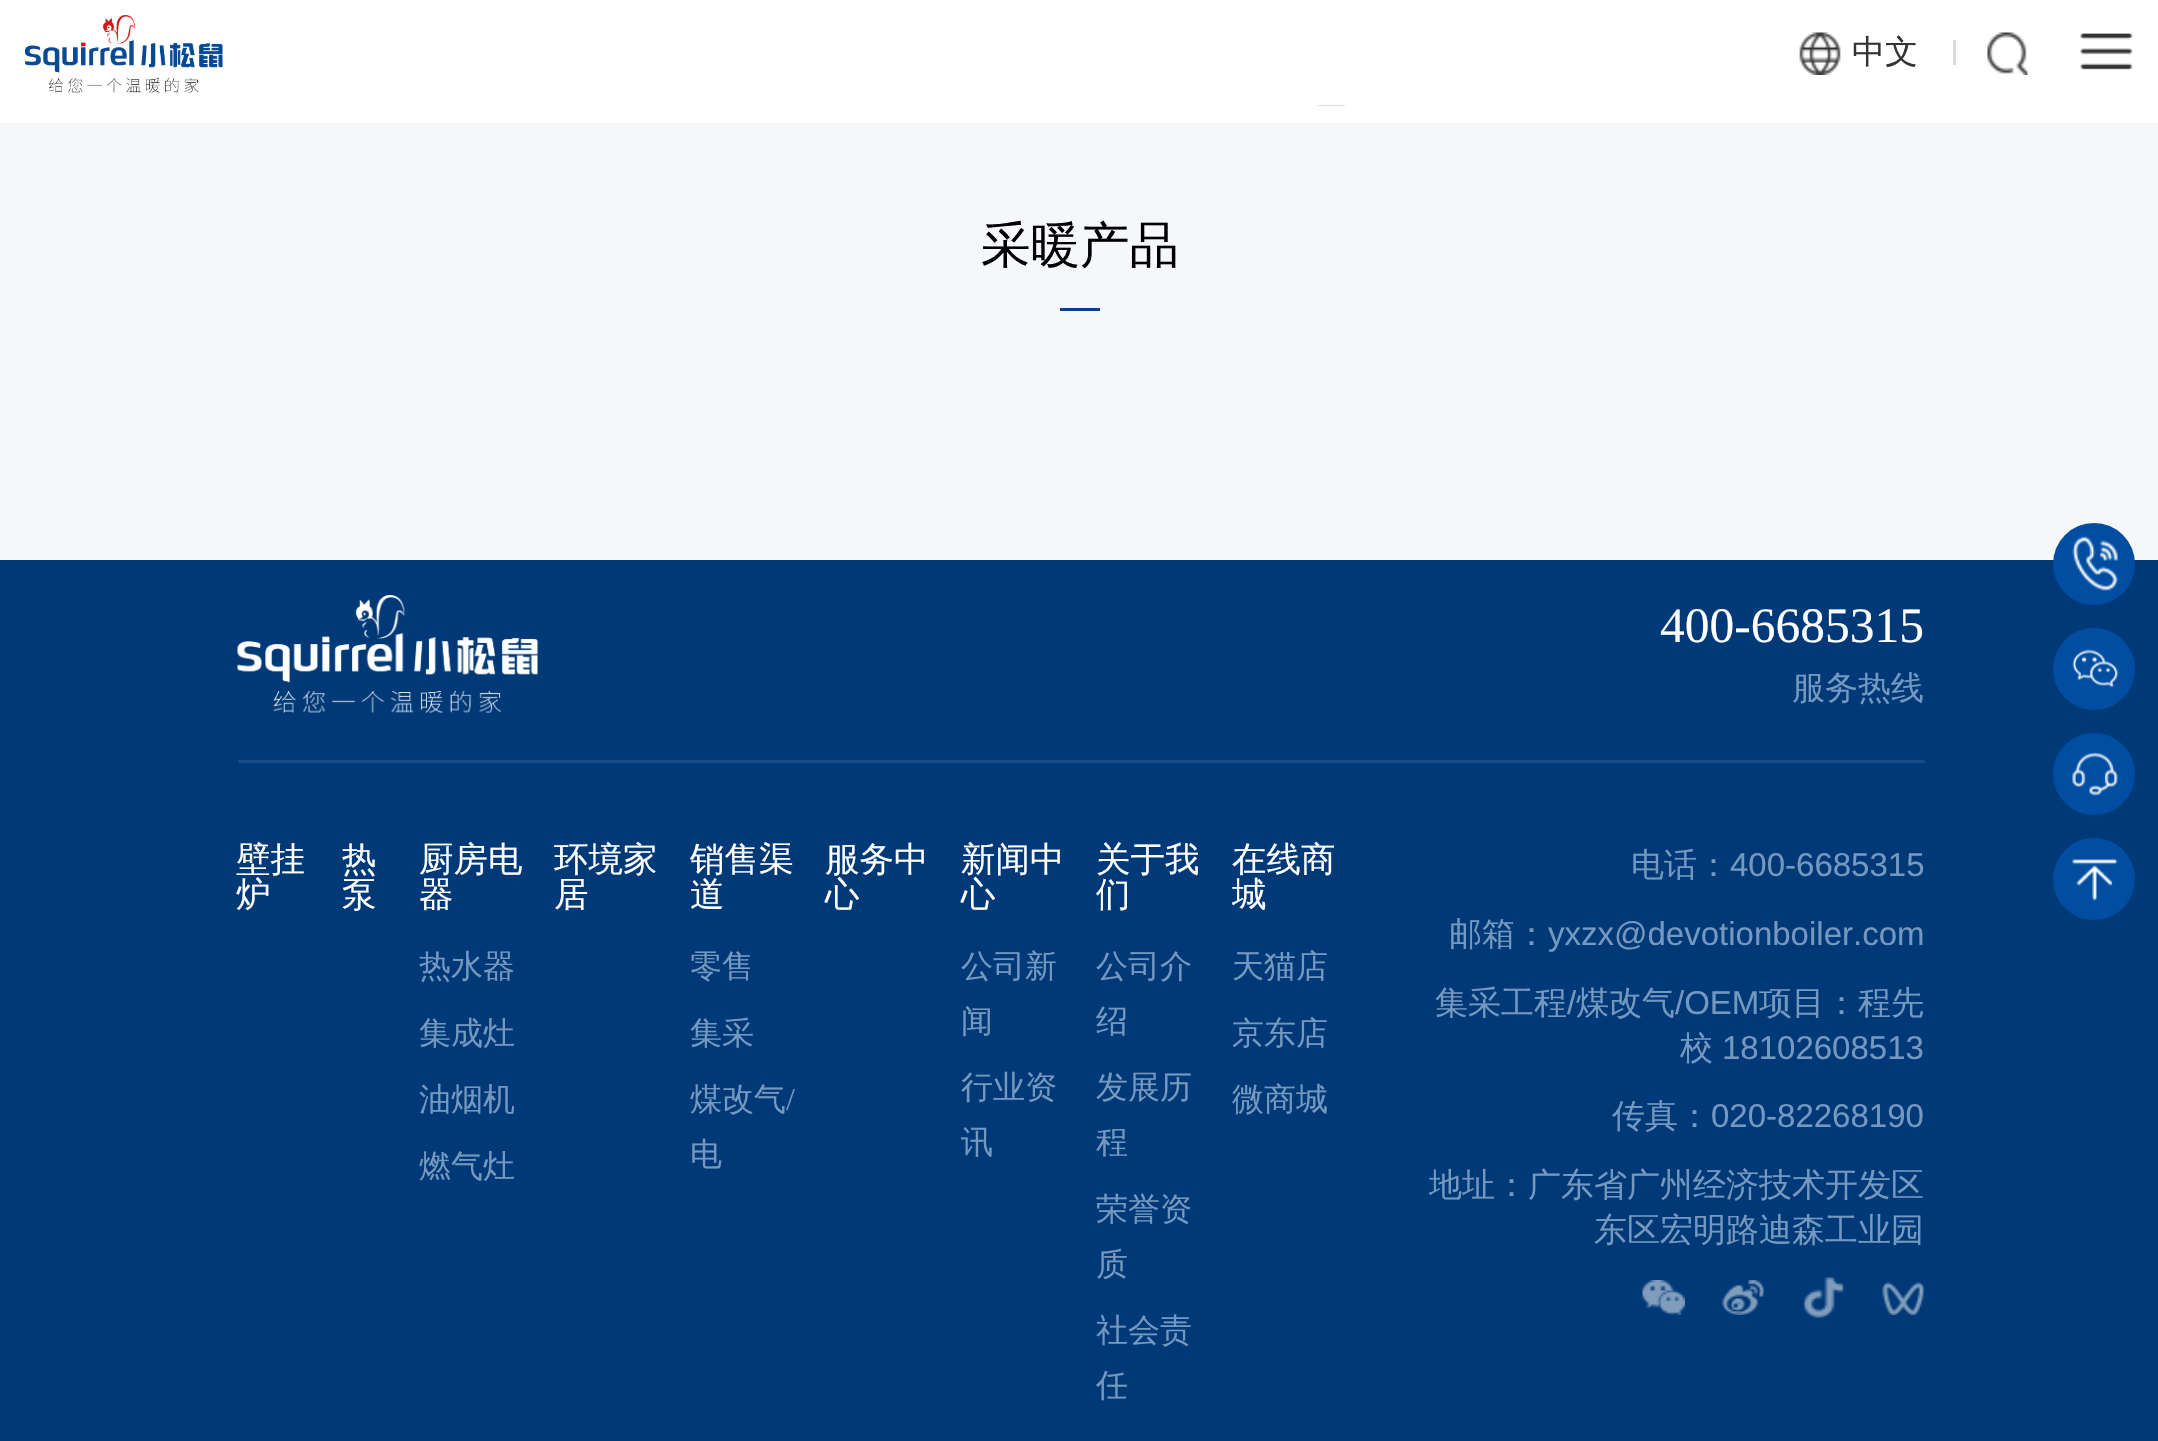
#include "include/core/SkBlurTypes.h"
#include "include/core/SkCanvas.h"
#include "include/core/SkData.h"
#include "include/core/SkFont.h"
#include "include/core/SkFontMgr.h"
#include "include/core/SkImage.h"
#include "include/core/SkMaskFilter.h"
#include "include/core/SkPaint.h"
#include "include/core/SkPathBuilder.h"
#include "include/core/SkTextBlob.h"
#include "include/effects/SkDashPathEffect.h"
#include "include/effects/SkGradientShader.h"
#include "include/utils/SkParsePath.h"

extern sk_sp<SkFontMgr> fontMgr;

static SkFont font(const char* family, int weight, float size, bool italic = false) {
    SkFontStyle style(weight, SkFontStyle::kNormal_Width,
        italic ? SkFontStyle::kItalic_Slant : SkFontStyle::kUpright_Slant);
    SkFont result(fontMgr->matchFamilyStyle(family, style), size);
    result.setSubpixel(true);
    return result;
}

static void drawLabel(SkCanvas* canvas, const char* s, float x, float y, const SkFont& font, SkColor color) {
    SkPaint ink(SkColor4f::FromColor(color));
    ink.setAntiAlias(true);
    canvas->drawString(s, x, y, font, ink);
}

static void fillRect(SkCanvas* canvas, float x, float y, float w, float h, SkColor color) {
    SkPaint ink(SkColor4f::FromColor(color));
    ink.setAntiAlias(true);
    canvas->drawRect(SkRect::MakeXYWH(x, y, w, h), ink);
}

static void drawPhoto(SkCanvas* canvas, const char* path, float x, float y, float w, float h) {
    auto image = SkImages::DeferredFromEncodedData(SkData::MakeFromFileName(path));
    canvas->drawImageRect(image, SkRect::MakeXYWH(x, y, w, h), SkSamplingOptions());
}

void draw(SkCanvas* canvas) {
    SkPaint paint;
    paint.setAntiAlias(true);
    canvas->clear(0xFFFFFFFF);
    drawPhoto(canvas, "assets/img1.png", 25, 15, 198, 78);
    drawPhoto(canvas, "assets/img2.png", 1799, 32, 42, 43);
    SkFont font1 = font("WenQuanYi Zen Hei", 500, 33);
    drawLabel(canvas, "中文", 1852, 63, font1, 0xFF333333);
    drawPhoto(canvas, "assets/img3.png", 1987, 32, 41, 43);
    fillRect(canvas, 1953, 40, 3, 25, 0xFFDCDCDC);
    drawPhoto(canvas, "assets/img4.png", 2079, 33, 54, 37);
    fillRect(canvas, 0, 123, 2158, 2, 0xFFF7F7F7);
    drawPhoto(canvas, "assets/img5.png", 1316, 105, 30, 1);
    fillRect(canvas, 0, 125, 2158, 435, 0xFFF5F7FB);
    SkFont font2 = font("WenQuanYi Zen Hei", 500, 49.5f);
    drawLabel(canvas, "采暖产品", 981, 262, font2, 0xFF000000);
    fillRect(canvas, 1060, 308, 40, 3, 0xFF01458E);
    fillRect(canvas, 0, 560, 2158, 881, 0xFF003977);
    fillRect(canvas, 238, 760, 1687, 3, 0xFF1A4D85);
    drawPhoto(canvas, "assets/img6.png", 237, 595, 301, 118);
    SkFont font3 = font("Liberation Serif", 400, 49.5f);
    drawLabel(canvas, "400-6685315", 1660, 642, font3, 0xFFFFFFFF);
    drawLabel(canvas, "服务热线", 1792, 699, font1, 0xFF7498BF);
    SkFont font4 = font("WenQuanYi Zen Hei", 500, 34.5f);
    drawLabel(canvas, "壁挂", 236, 871, font4, 0xFFFFFFFF);
    drawLabel(canvas, "炉", 236, 906, font4, 0xFFFFFFFF);
    drawLabel(canvas, "热", 342, 871, font4, 0xFFFFFFFF);
    drawLabel(canvas, "泵", 342, 906, font4, 0xFFFFFFFF);
    drawLabel(canvas, "厨房电", 419, 871, font4, 0xFFFFFFFF);
    drawLabel(canvas, "器", 419, 906, font4, 0xFFFFFFFF);
    SkFont font5 = font("WenQuanYi Zen Hei", 500, 32);
    drawLabel(canvas, "热水器", 419, 977, font5, 0xFF7498BF);
    drawLabel(canvas, "集成灶", 419, 1044, font5, 0xFF7498BF);
    drawLabel(canvas, "油烟机", 419, 1110, font5, 0xFF7498BF);
    drawLabel(canvas, "燃气灶", 419, 1177, font5, 0xFF7498BF);
    drawLabel(canvas, "环境家", 554, 871, font4, 0xFFFFFFFF);
    drawLabel(canvas, "居", 554, 906, font4, 0xFFFFFFFF);
    drawLabel(canvas, "销售渠", 690, 871, font4, 0xFFFFFFFF);
    drawLabel(canvas, "道", 690, 906, font4, 0xFFFFFFFF);
    drawLabel(canvas, "零售", 690, 977, font5, 0xFF7498BF);
    drawLabel(canvas, "集采", 690, 1044, font5, 0xFF7498BF);
    drawLabel(canvas, "煤改气", 690, 1110, font5, 0xFF7498BF);
    SkFont font6 = font("Liberation Serif", 400, 32);
    drawLabel(canvas, "/", 786, 1110, font6, 0xFF7498BF);
    drawLabel(canvas, "电", 690, 1165, font5, 0xFF7498BF);
    drawLabel(canvas, "服务中", 825, 871, font4, 0xFFFFFFFF);
    drawLabel(canvas, "心", 825, 906, font4, 0xFFFFFFFF);
    drawLabel(canvas, "新闻中", 961, 871, font4, 0xFFFFFFFF);
    drawLabel(canvas, "心", 961, 906, font4, 0xFFFFFFFF);
    drawLabel(canvas, "公司新", 961, 977, font5, 0xFF7498BF);
    drawLabel(canvas, "闻", 961, 1032, font5, 0xFF7498BF);
    drawLabel(canvas, "行业资", 961, 1098, font5, 0xFF7498BF);
    drawLabel(canvas, "讯", 961, 1153, font5, 0xFF7498BF);
    drawLabel(canvas, "关于我", 1096, 871, font4, 0xFFFFFFFF);
    drawLabel(canvas, "们", 1096, 906, font4, 0xFFFFFFFF);
    drawLabel(canvas, "公司介", 1096, 977, font5, 0xFF7498BF);
    drawLabel(canvas, "绍", 1096, 1032, font5, 0xFF7498BF);
    drawLabel(canvas, "发展历", 1096, 1098, font5, 0xFF7498BF);
    drawLabel(canvas, "程", 1096, 1153, font5, 0xFF7498BF);
    drawLabel(canvas, "荣誉资", 1096, 1220, font5, 0xFF7498BF);
    drawLabel(canvas, "质", 1096, 1275, font5, 0xFF7498BF);
    drawLabel(canvas, "社会责", 1096, 1341, font5, 0xFF7498BF);
    drawLabel(canvas, "任", 1096, 1396, font5, 0xFF7498BF);
    drawLabel(canvas, "在线商", 1232, 871, font4, 0xFFFFFFFF);
    drawLabel(canvas, "城", 1232, 906, font4, 0xFFFFFFFF);
    drawLabel(canvas, "天猫店", 1232, 977, font5, 0xFF7498BF);
    drawLabel(canvas, "京东店", 1232, 1044, font5, 0xFF7498BF);
    drawLabel(canvas, "微商城", 1232, 1110, font5, 0xFF7498BF);
    drawLabel(canvas, "电话：", 1631, 876, font1, 0xFF7498BF);
    SkFont font7 = font("Liberation Sans", 400, 33);
    drawLabel(canvas, "400-6685315", 1730, 876, font7, 0xFF7498BF);
    drawLabel(canvas, "邮箱：", 1449, 945, font1, 0xFF7498BF);
    drawLabel(canvas, "yxzx@devotionboiler.com", 1548, 945, font7, 0xFF7498BF);
    drawLabel(canvas, "集采工程", 1435, 1014, font1, 0xFF7498BF);
    drawLabel(canvas, "/", 1567, 1014, font7, 0xFF7498BF);
    drawLabel(canvas, "煤改气", 1576, 1014, font1, 0xFF7498BF);
    drawLabel(canvas, "/OEM", 1675, 1014, font7, 0xFF7498BF);
    drawLabel(canvas, "项目：程先", 1759, 1014, font1, 0xFF7498BF);
    drawLabel(canvas, "校", 1680, 1059, font1, 0xFF7498BF);
    drawLabel(canvas, "18102608513", 1722, 1059, font7, 0xFF7498BF);
    drawLabel(canvas, "传真：", 1612, 1127, font1, 0xFF7498BF);
    drawLabel(canvas, "020-82268190", 1711, 1127, font7, 0xFF7498BF);
    drawLabel(canvas, "地址：广东省广州经济技术开发区", 1429, 1196, font1, 0xFF7498BF);
    drawLabel(canvas, "东区宏明路迪森工业园", 1594, 1241, font1, 0xFF7498BF);
    drawPhoto(canvas, "assets/img7.png", 1642, 1280, 43, 35);
    drawPhoto(canvas, "assets/img8.png", 1722, 1280, 43, 35);
    drawPhoto(canvas, "assets/img9.png", 1802, 1277, 43, 41);
    drawPhoto(canvas, "assets/img10.png", 1882, 1282, 43, 33);
    paint.setColor(0xFF004DA1);
    canvas->drawCircle(2094, 564, 41, paint);
    drawPhoto(canvas, "assets/img11.png", 2072, 536, 46, 55);
    canvas->drawCircle(2094, 669, 41, paint);
    drawPhoto(canvas, "assets/img12.png", 2072, 649, 46, 39);
    canvas->drawCircle(2094, 774, 41, paint);
    drawPhoto(canvas, "assets/img13.png", 2072, 752, 46, 44);
    canvas->drawCircle(2094, 879, 41, paint);
    drawPhoto(canvas, "assets/img14.png", 2072, 859, 46, 42);
}
